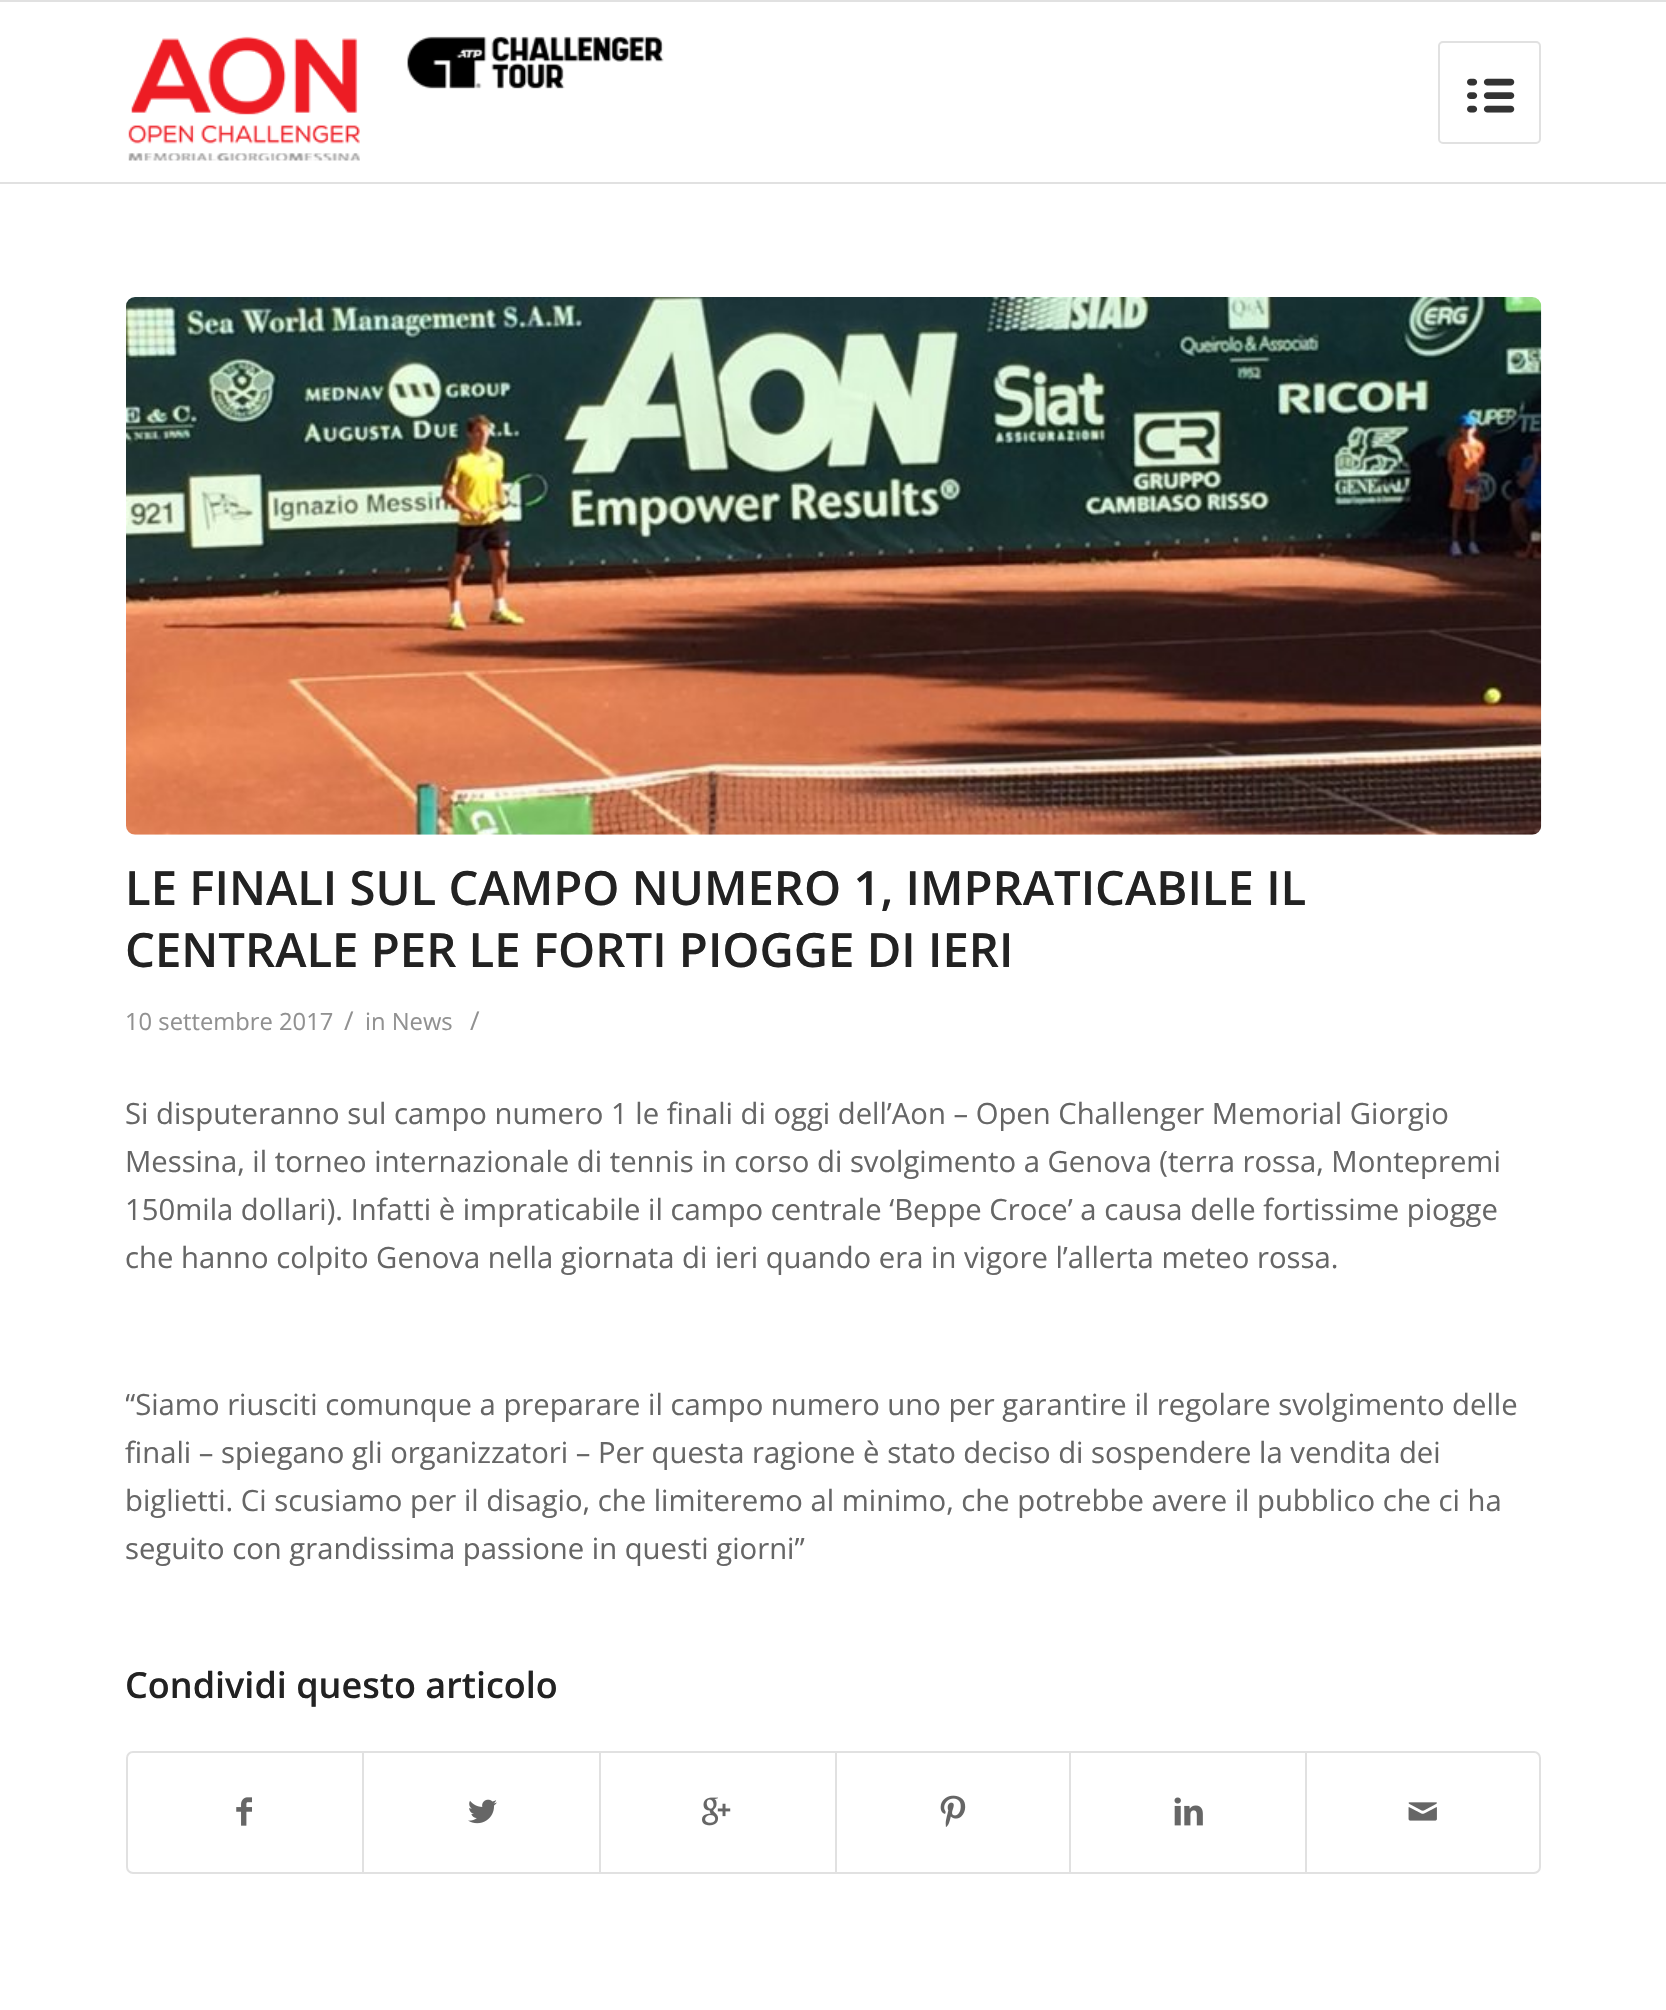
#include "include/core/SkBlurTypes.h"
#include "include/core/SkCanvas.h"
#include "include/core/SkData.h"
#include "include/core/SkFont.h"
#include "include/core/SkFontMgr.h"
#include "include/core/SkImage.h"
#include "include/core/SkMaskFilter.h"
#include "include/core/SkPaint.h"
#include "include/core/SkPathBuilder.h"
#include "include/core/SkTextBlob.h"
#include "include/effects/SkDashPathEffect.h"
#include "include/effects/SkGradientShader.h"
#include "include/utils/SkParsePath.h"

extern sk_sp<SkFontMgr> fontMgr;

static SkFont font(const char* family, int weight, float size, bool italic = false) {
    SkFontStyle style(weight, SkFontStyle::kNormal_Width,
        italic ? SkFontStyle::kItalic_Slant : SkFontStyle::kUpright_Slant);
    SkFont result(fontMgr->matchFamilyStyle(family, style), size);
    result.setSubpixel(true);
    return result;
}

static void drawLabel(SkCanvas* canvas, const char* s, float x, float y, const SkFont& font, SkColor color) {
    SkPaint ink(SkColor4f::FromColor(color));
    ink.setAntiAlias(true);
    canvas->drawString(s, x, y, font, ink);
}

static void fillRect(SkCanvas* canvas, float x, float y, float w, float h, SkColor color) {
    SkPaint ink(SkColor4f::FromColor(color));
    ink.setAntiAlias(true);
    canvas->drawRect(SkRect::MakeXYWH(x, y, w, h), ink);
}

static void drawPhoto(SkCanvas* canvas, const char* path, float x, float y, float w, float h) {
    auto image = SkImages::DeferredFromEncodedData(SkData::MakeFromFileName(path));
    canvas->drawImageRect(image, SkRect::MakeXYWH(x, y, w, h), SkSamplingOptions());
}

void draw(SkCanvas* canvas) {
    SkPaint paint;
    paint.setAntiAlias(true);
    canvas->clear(0xFFFFFFFF);
    fillRect(canvas, 0, 0, 1666, 2, 0xFFE1E1E1);
    fillRect(canvas, 0, 182, 1666, 2, 0xFFE1E1E1);
    drawPhoto(canvas, "assets/img1.png", 128, 36, 536, 125);
    paint.setStroke(true);
    paint.setStrokeWidth(2);
    paint.setColor(0xFFE1E1E1);
    canvas->drawRoundRect(SkRect::MakeXYWH(1439, 42, 101, 101), 4, 4, paint);
    drawPhoto(canvas, "assets/img2.png", 1467, 78, 48, 35);
    drawPhoto(canvas, "assets/img3.png", 126, 297, 1416, 538);
    SkFont font1 = font("Open Sans", 600, 47.25f);
    drawLabel(canvas, "LE FINALI SUL CAMPO NUMERO 1, IMPRATICABILE IL", 125, 905, font1, 0xFF222222);
    drawLabel(canvas, "CENTRALE PER LE FORTI PIOGGE DI IERI", 125, 967, font1, 0xFF222222);
    SkFont font2 = font("Open Sans", 400, 23.75f);
    drawLabel(canvas, "10 settembre 2017", 125, 1030, font2, 0xFF919191);
    SkFont font3 = font("Open Sans", 400, 26);
    drawLabel(canvas, "/", 344, 1030, font3, 0xFF919191);
    drawLabel(canvas, "in News", 365, 1030, font2, 0xFF919191);
    drawLabel(canvas, "/", 470, 1030, font3, 0xFF919191);
    SkFont font4 = font("Open Sans", 400, 29.25f);
    drawLabel(canvas, "Si disputeranno sul campo numero 1 le finali di oggi dell’Aon – Open Challenger Memorial Giorgio", 125, 1124, font4, 0xFF666666);
    drawLabel(canvas, "Messina, il torneo internazionale di tennis in corso di svolgimento a Genova (terra rossa, Montepremi", 125, 1172, font4, 0xFF666666);
    drawLabel(canvas, "150mila dollari). Infatti è impraticabile il campo centrale ‘Beppe Croce’ a causa delle fortissime piogge", 125, 1220, font4, 0xFF666666);
    drawLabel(canvas, "che hanno colpito Genova nella giornata di ieri quando era in vigore l’allerta meteo rossa.", 125, 1268, font4, 0xFF666666);
    canvas->save();
    canvas->clipRect(SkRect::MakeXYWH(126, 857, 1415, 1040));
    drawLabel(canvas, "“Siamo riusciti comunque a preparare il campo numero uno per garantire il regolare svolgimento delle", 125, 1415, font4, 0xFF666666);
    canvas->restore();
    drawLabel(canvas, "finali – spiegano gli organizzatori – Per questa ragione è stato deciso di sospendere la vendita dei", 125, 1463, font4, 0xFF666666);
    drawLabel(canvas, "biglietti. Ci scusiamo per il disagio, che limiteremo al minimo, che potrebbe avere il pubblico che ci ha", 125, 1511, font4, 0xFF666666);
    drawLabel(canvas, "seguito con grandissima passione in questi giorni”", 125, 1559, font4, 0xFF666666);
    SkFont font5 = font("Open Sans", 600, 36);
    drawLabel(canvas, "Condividi questo articolo", 125, 1698, font5, 0xFF222222);
    canvas->drawRoundRect(SkRect::MakeXYWH(127, 1752, 1413, 121), 6, 6, paint);
    drawPhoto(canvas, "assets/img4.png", 236, 1797, 16, 29);
    fillRect(canvas, 362, 1753, 2, 119, 0xFFE1E1E1);
    drawPhoto(canvas, "assets/img5.png", 468, 1799, 29, 25);
    fillRect(canvas, 599, 1753, 2, 119, 0xFFE1E1E1);
    drawPhoto(canvas, "assets/img6.png", 702, 1797, 29, 29);
    fillRect(canvas, 835, 1753, 2, 119, 0xFFE1E1E1);
    drawPhoto(canvas, "assets/img7.png", 940, 1795, 26, 32);
    fillRect(canvas, 1069, 1753, 2, 119, 0xFFE1E1E1);
    drawPhoto(canvas, "assets/img8.png", 1174, 1797, 29, 29);
    fillRect(canvas, 1305, 1753, 2, 119, 0xFFE1E1E1);
    drawPhoto(canvas, "assets/img9.png", 1408, 1802, 29, 19);
}
